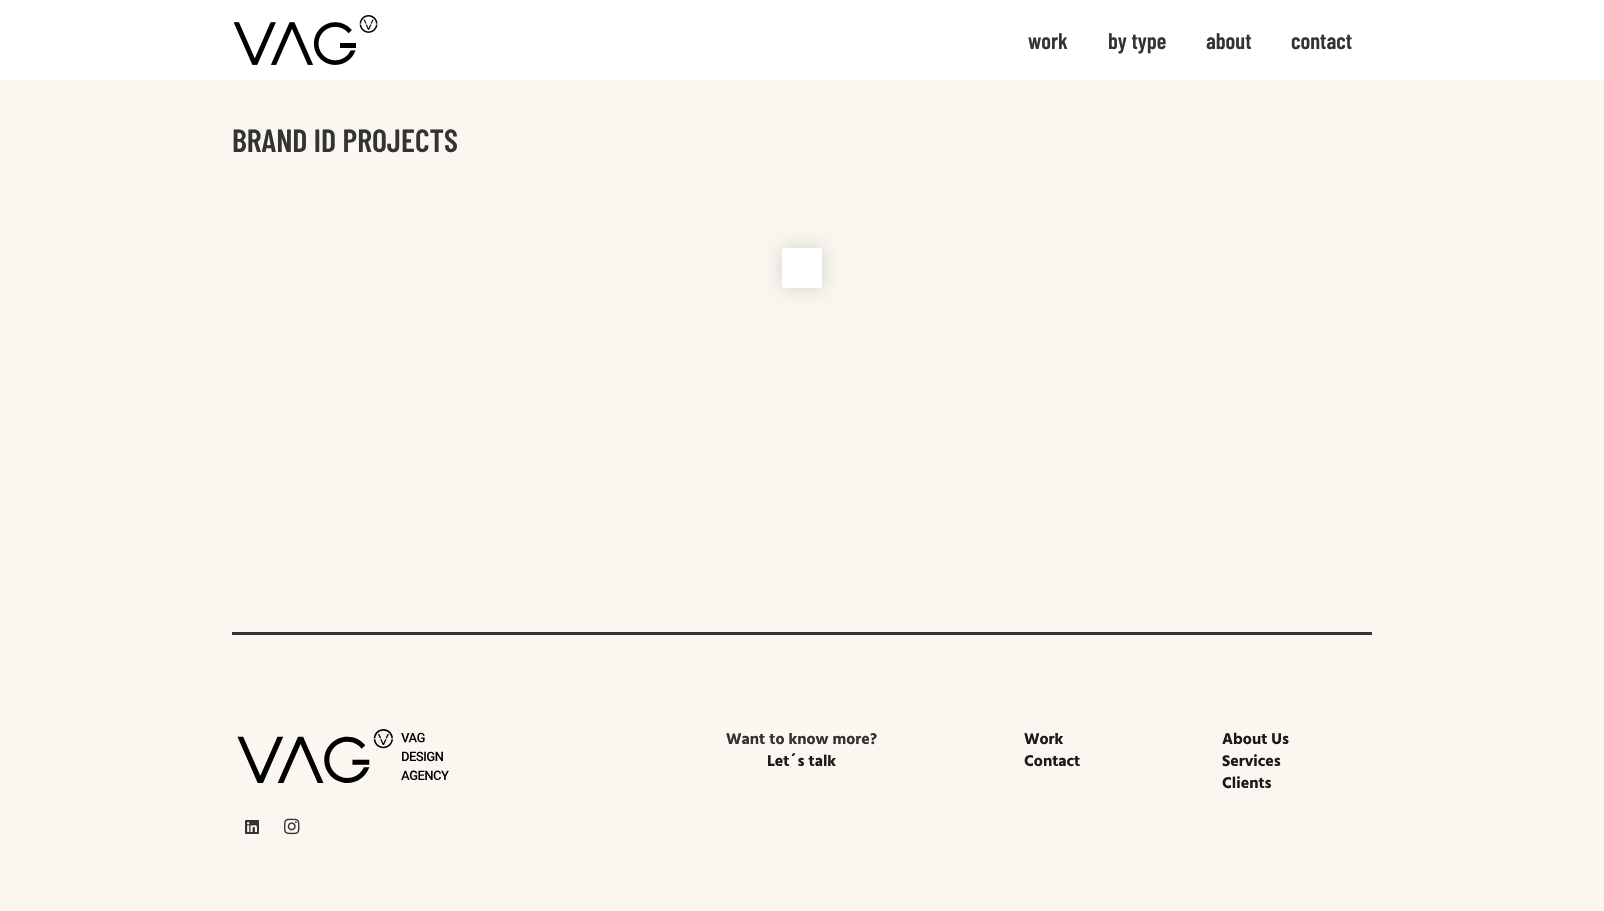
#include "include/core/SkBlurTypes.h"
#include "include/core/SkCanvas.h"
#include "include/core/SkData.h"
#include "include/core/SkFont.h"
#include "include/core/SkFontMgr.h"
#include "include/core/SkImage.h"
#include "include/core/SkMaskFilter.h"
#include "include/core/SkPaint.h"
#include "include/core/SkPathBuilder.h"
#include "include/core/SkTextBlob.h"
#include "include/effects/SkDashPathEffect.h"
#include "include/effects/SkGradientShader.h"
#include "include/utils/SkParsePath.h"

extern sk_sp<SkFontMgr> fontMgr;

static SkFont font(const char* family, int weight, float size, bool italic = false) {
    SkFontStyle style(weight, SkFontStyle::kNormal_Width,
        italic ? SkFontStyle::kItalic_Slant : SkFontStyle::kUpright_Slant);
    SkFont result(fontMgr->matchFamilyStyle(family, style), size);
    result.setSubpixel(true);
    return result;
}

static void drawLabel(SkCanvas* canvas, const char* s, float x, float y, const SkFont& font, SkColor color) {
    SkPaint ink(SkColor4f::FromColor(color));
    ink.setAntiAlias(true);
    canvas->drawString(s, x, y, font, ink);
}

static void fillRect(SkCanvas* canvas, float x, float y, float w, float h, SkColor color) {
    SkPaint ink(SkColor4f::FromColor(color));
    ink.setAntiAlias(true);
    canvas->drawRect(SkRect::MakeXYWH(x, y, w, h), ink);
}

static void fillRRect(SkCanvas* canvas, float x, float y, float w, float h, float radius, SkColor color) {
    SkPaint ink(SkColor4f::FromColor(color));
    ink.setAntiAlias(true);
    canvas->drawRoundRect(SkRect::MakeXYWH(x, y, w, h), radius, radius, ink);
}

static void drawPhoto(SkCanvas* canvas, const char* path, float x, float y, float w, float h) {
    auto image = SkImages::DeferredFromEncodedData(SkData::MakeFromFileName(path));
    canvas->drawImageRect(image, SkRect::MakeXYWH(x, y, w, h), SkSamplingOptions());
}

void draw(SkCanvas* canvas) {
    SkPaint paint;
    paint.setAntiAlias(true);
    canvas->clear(0xFFF9F7EF);
    fillRect(canvas, 0, 0, 1604, 80, 0xFFFFFFFF);
    drawPhoto(canvas, "assets/img1.png", 233, 15, 145, 50);
    SkFont font1 = font("Barlow Condensed", 600, 22.5f);
    drawLabel(canvas, "work", 1028, 49, font1, 0xFF333333);
    drawLabel(canvas, "by type", 1108, 49, font1, 0xFF333333);
    drawLabel(canvas, "about", 1206, 49, font1, 0xFF333333);
    drawLabel(canvas, "contact", 1291, 49, font1, 0xFF333333);
    SkFont font2 = font("Barlow Condensed", 600, 32);
    drawLabel(canvas, "BRAND ID PROJECTS", 232, 152, font2, 0xFF333333);
    paint.setColor(0x26000000);
    paint.setMaskFilter(SkMaskFilter::MakeBlur(kNormal_SkBlurStyle, 10));
    canvas->drawRoundRect(SkRect::MakeXYWH(782, 248, 40, 40), 3, 3, paint);
    paint.setMaskFilter(nullptr);
    fillRRect(canvas, 782, 248, 40, 40, 3, 0xFFFFFFFF);
    fillRect(canvas, 232, 632, 1140, 3, 0xFF333333);
    drawPhoto(canvas, "assets/img2.png", 237, 729, 212, 54);
    drawPhoto(canvas, "assets/img3.png", 245, 820, 14, 14);
    drawPhoto(canvas, "assets/img4.png", 284, 818, 16, 17);
    SkFont font3 = font("Hind", 700, 16);
    drawLabel(canvas, "Want to know more?", 726, 744, font3, 0xFF333333);
    drawLabel(canvas, "Let´s talk", 767, 766, font3, 0xFF1A1A1A);
    drawLabel(canvas, "Work", 1024, 744, font3, 0xFF1A1A1A);
    drawLabel(canvas, "Contact", 1024, 766, font3, 0xFF1A1A1A);
    drawLabel(canvas, "About Us", 1222, 744, font3, 0xFF1A1A1A);
    drawLabel(canvas, "Services", 1222, 766, font3, 0xFF1A1A1A);
    drawLabel(canvas, "Clients", 1222, 788, font3, 0xFF1A1A1A);
}
